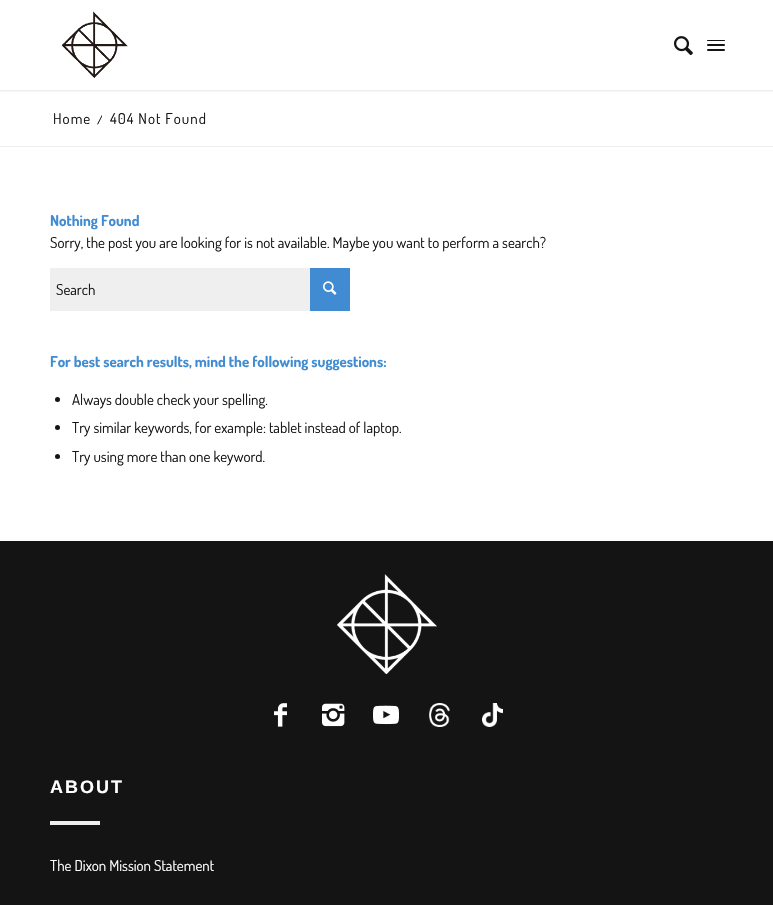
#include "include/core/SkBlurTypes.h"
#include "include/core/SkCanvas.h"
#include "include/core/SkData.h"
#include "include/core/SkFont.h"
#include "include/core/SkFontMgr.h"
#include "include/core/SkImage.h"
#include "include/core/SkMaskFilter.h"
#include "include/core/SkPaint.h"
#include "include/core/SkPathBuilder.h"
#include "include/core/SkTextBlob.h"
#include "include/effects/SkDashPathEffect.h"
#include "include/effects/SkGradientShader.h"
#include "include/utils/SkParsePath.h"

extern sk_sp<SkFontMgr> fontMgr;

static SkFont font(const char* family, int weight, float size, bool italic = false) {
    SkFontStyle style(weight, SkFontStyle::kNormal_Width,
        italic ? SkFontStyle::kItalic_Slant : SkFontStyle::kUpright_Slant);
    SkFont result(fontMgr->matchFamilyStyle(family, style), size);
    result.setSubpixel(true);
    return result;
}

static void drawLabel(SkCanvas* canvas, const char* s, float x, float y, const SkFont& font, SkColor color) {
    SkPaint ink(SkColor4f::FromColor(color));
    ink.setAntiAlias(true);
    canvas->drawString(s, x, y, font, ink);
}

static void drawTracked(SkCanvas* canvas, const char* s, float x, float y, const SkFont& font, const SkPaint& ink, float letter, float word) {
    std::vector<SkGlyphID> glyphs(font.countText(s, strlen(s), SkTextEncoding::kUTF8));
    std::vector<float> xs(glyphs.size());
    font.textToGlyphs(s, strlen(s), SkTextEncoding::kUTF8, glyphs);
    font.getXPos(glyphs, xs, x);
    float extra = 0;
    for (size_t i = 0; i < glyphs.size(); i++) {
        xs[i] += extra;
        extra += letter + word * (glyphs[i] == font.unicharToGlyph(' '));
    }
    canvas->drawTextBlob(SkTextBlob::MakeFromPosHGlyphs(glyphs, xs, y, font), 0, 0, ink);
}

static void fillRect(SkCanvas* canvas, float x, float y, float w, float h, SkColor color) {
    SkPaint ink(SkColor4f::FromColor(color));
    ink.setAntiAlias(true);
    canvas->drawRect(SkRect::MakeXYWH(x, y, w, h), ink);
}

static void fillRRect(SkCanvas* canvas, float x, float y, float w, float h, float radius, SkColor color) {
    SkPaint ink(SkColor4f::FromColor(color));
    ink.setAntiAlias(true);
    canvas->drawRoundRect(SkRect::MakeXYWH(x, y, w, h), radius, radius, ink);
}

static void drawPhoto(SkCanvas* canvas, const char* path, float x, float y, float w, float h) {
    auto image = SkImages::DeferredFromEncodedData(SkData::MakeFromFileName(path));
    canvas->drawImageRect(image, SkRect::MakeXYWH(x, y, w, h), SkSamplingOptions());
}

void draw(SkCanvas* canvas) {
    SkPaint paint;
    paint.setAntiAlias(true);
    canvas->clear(0xFFFFFFFF);
    canvas->save();
    canvas->clipRect(SkRect::MakeXYWH(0, 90, 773, 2));
    paint.setColor(0x1A000000);
    paint.setMaskFilter(SkMaskFilter::MakeBlur(kNormal_SkBlurStyle, 1));
    canvas->drawRect(SkRect::MakeXYWH(-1, -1, 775, 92), paint);
    paint.setMaskFilter(nullptr);
    canvas->restore();
    drawPhoto(canvas, "assets/img1.png", 61, 11, 67, 67);
    drawPhoto(canvas, "assets/img2.png", 674, 36, 19, 20);
    fillRRect(canvas, 707, 44, 18, 2, 1, 0xFF151415);
    fillRRect(canvas, 707, 40, 18, 1, 0.5f, 0xFF151415);
    fillRRect(canvas, 707, 49, 18, 2, 1, 0xFF151415);
    SkFont font1 = font("Dosis", 400, 15);
    paint.setColor(0xFF151415);
    drawTracked(canvas, "Home", 53, 124, font1, paint, 1, 0);
    canvas->save();
    canvas->clipRect(SkRect::MakeXYWH(94, 111, 8, 15));
    drawTracked(canvas, "/", 97, 124, font1, paint, 1, 0);
    canvas->restore();
    drawTracked(canvas, "404 Not Found", 110, 124, font1, paint, 1, 0);
    fillRect(canvas, 0, 146, 773, 1, 0xFFEEEEEE);
    SkFont font2 = font("Dosis", 700, 15);
    drawLabel(canvas, "Nothing Found", 50, 226, font2, 0xFF408BD1);
    drawLabel(canvas, "Sorry, the post you are looking for is not available. Maybe you want to perform a search?", 50, 248, font1, 0xFF151415);
    fillRect(canvas, 50, 268, 260, 43, 0xFFEFEFEF);
    drawLabel(canvas, "Search", 56, 295, font1, 0xFF151415);
    fillRect(canvas, 310, 268, 40, 43, 0xFF408BD1);
    drawPhoto(canvas, "assets/img3.png", 323, 281, 14, 14);
    drawLabel(canvas, "For best search results, mind the following suggestions:", 50, 367, font2, 0xFF408BD1);
    canvas->drawCircle(57.5f, 399.5f, 2.5f, paint);
    drawLabel(canvas, "Always double check your spelling.", 72, 405, font1, 0xFF151415);
    canvas->drawCircle(57.5f, 427.5f, 2.5f, paint);
    drawLabel(canvas, "Try similar keywords, for example: tablet instead of laptop.", 72, 433, font1, 0xFF151415);
    canvas->drawCircle(57.5f, 456.5f, 2.5f, paint);
    drawLabel(canvas, "Try using more than one keyword.", 72, 462, font1, 0xFF151415);
    fillRect(canvas, 0, 541, 773, 364, 0xFF151415);
    drawPhoto(canvas, "assets/img4.png", 337, 574, 100, 100);
    drawPhoto(canvas, "assets/img5.png", 274, 703, 13, 24);
    drawPhoto(canvas, "assets/img6.png", 322, 703, 23, 24);
    drawPhoto(canvas, "assets/img7.png", 373, 705, 26, 20);
    drawPhoto(canvas, "assets/img8.png", 429, 703, 21, 24);
    drawPhoto(canvas, "assets/img9.png", 482, 703, 21, 24);
    SkFont font3 = font("Liberation Sans", 700, 18);
    paint.setColor(0xFFFFFFFF);
    drawTracked(canvas, "ABOUT", 50, 793, font3, paint, 2, 0);
    fillRect(canvas, 50, 821, 50, 4, 0xFFEFEFEF);
    drawLabel(canvas, "The Dixon Mission Statement", 50, 871, font1, 0xFFFFFFFF);
}
